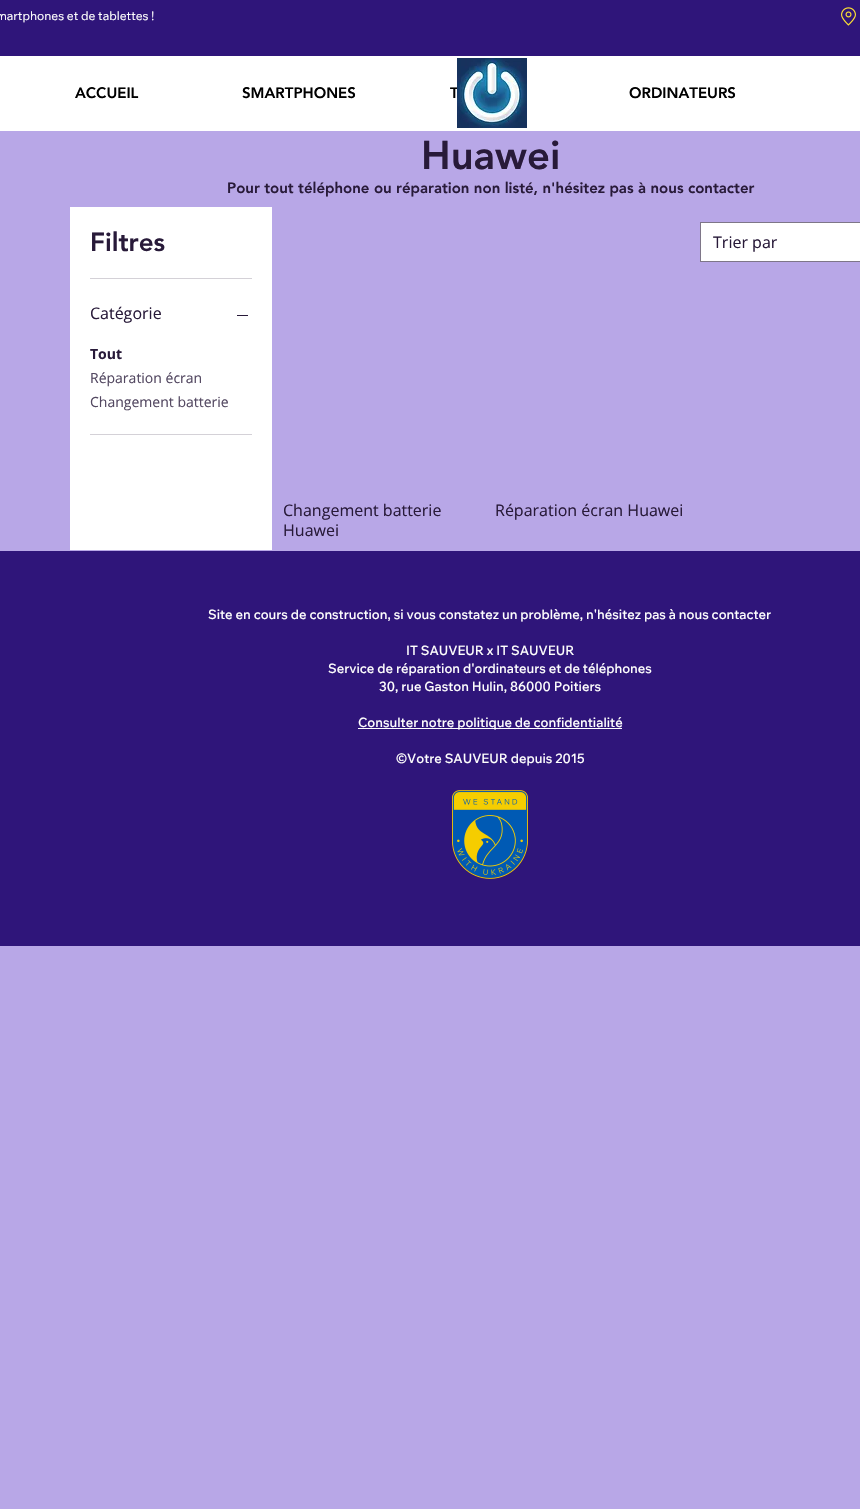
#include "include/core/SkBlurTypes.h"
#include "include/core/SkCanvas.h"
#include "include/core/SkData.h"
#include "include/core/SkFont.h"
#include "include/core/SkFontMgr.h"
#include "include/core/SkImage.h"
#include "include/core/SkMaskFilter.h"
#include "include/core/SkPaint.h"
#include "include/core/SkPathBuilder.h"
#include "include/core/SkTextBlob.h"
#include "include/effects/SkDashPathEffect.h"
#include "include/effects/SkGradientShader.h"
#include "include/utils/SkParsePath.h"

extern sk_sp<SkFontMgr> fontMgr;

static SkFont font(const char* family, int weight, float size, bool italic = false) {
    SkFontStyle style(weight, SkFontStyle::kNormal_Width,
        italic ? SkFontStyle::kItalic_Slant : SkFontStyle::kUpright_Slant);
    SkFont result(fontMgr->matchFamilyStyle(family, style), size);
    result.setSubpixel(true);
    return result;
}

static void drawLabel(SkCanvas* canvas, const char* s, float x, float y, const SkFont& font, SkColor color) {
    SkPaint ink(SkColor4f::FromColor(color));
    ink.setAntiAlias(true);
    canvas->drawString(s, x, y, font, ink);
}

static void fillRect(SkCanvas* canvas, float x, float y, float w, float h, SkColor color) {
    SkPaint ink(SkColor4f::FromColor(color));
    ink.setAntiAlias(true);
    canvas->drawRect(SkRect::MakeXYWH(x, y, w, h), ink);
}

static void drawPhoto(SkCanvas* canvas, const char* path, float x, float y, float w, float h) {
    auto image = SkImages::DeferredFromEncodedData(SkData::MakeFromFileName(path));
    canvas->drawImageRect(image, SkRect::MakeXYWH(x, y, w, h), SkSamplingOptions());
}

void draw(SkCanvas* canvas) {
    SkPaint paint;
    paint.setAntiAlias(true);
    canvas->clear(0xFFB8A7E7);
    fillRect(canvas, 0, 0, 860, 56, 0xFF2F157A);
    SkFont font1 = font("Wix Madefor Text", 400, 12);
    drawLabel(canvas, "martphones et de tablettes !", -4, 20, font1, 0xFFFFFFFE);
    drawPhoto(canvas, "assets/img1.png", 841, 7, 15, 19);
    fillRect(canvas, 0, 56, 860, 75, 0xFFFFFFFF);
    SkFont font2 = font("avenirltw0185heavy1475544", 900, 15);
    drawLabel(canvas, "T", 450, 98, font2, 0xFF000000);
    drawPhoto(canvas, "assets/img2.png", 457, 58, 70, 70);
    drawLabel(canvas, "ACCUEIL", 75, 98, font2, 0xFF000000);
    drawLabel(canvas, "SMARTPHONES", 242, 98, font2, 0xFF000000);
    drawLabel(canvas, "ORDINATEURS", 629, 98, font2, 0xFF000000);
    SkFont font3 = font("avenirltw0185heavy1475544", 900, 40);
    drawLabel(canvas, "Huawei", 421, 169, font3, 0xFF281A39);
    drawLabel(canvas, "Pour tout téléphone ou réparation non listé, n'hésitez pas à nous contacter", 227, 193, font2, 0xFF281A39);
    fillRect(canvas, 70, 207, 202, 343, 0xFFFFFFFF);
    fillRect(canvas, 90, 278, 162, 1, 0xFFD4D1D7);
    SkFont font4 = font("avenirltw0185heavy1475544", 900, 26);
    drawLabel(canvas, "Filtres", 90, 251, font4, 0xFF281A39);
    fillRect(canvas, 90, 434, 162, 1, 0xFFD4D1D7);
    SkFont font5 = font("Open Sans", 400, 16);
    drawLabel(canvas, "Catégorie", 90, 319, font5, 0xFF281A39);
    fillRect(canvas, 237, 315, 11, 1, 0xFF281A39);
    SkFont font6 = font("Open Sans", 700, 14);
    drawLabel(canvas, "Tout", 90, 359, font6, 0xFF281A39);
    SkFont font7 = font("Open Sans", 400, 14);
    drawLabel(canvas, "Réparation écran", 90, 383, font7, 0xFF534861);
    drawLabel(canvas, "Changement batterie", 90, 407, font7, 0xFF534861);
    paint.setColor(0xFFFFFFFF);
    canvas->drawRect(SkRect::MakeXYWH(700.5f, 222.5f, 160, 39), paint);
    paint.setStroke(true);
    paint.setStrokeWidth(1);
    paint.setColor(0xFF7E7688);
    canvas->drawRect(SkRect::MakeXYWH(700.5f, 222.5f, 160, 39), paint);
    drawLabel(canvas, "Trier par", 713, 248, font5, 0xFF281A39);
    drawLabel(canvas, "Changement batterie", 283, 516, font5, 0xFF281A39);
    drawLabel(canvas, "Huawei", 283, 536, font5, 0xFF281A39);
    drawLabel(canvas, "Réparation écran Huawei", 495, 516, font5, 0xFF281A39);
    fillRect(canvas, 0, 551, 860, 395, 0xFF2F157A);
    SkFont font8 = font("Wix Madefor Text", 500, 13);
    drawLabel(canvas, "Site en cours de construction, si vous constatez un problème, n'hésitez pas à nous contacter", 208, 619, font8, 0xFFFFFFFE);
    drawLabel(canvas, "IT SAUVEUR x IT SAUVEUR", 406, 655, font8, 0xFFFFFFFE);
    drawLabel(canvas, "Service de réparation d'ordinateurs et de téléphones", 328, 673, font8, 0xFFFFFFFE);
    drawLabel(canvas, "30, rue Gaston Hulin, 86000 Poitiers", 379, 691, font8, 0xFFFFFFFE);
    fillRect(canvas, 358, 728, 264, 1, 0xFFFFFFFF);
    drawLabel(canvas, "Consulter notre politique de confidentialité", 358, 727, font8, 0xFFFFFFFE);
    drawLabel(canvas, "©Votre SAUVEUR depuis 2015", 396, 763, font8, 0xFFFFFFFE);
    drawPhoto(canvas, "assets/img3.png", 452, 790, 76, 89);
}
